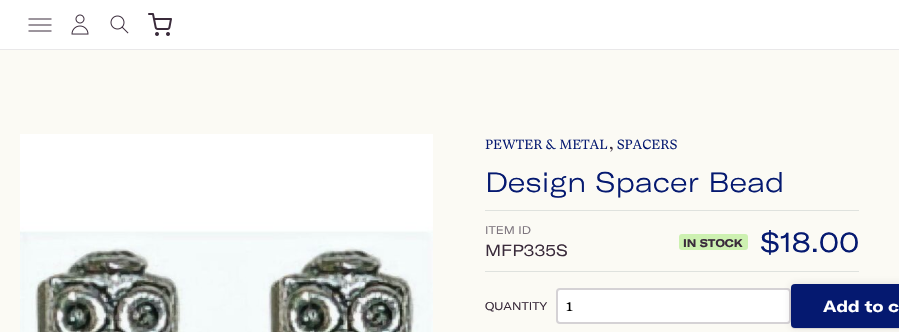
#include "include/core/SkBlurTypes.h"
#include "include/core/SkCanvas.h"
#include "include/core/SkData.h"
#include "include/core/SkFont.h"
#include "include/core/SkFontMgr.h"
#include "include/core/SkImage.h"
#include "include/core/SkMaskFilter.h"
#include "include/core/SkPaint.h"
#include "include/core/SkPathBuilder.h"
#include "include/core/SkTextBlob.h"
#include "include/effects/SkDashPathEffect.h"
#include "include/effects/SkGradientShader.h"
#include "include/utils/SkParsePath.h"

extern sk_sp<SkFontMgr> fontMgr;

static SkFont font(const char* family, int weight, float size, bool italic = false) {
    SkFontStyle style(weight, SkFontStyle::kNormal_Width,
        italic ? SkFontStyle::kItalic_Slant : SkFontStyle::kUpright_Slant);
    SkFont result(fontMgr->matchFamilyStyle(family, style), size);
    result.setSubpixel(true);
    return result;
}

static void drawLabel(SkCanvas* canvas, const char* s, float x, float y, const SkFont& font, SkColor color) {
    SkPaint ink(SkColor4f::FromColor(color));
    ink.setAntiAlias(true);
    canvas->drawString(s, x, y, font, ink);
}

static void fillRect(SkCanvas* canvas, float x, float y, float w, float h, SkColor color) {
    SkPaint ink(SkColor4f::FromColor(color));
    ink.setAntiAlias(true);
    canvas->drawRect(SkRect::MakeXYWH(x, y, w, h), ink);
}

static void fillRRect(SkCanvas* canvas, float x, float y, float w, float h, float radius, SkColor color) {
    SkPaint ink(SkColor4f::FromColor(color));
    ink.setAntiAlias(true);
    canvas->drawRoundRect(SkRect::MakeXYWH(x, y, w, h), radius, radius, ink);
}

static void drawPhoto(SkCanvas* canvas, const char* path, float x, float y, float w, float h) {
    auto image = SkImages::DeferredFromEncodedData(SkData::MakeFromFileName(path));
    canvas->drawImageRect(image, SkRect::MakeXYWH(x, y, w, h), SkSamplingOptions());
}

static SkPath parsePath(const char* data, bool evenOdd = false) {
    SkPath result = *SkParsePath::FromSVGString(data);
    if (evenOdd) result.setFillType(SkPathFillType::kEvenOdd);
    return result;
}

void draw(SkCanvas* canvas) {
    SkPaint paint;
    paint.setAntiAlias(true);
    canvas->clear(0xFFFFFFFF);
    fillRect(canvas, 0, 49, 899, 1, 0xFFE9E8E9);
    paint.setStroke(true);
    paint.setStrokeWidth(1);
    paint.setStrokeCap(SkPaint::kSquare_Cap);
    paint.setColor(0xFF3A2B3B);
    canvas->drawPath(parsePath("M29 19H51M29 25H51M29 31H51"), paint);
    drawPhoto(canvas, "assets/img1.png", 71, 14, 18, 21);
    drawPhoto(canvas, "assets/img2.png", 110, 15, 19, 19);
    drawPhoto(canvas, "assets/img3.png", 148, 13, 24, 23);
    fillRect(canvas, 0, 50, 899, 282, 0xFFFBFAF4);
    drawPhoto(canvas, "assets/img4.png", 20, 134, 413, 198);
    SkFont font1 = font("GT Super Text", 400, 13.25f);
    drawLabel(canvas, "PEWTER & METAL", 485, 149, font1, 0xFF051970);
    SkFont font2 = font("GT Super Text", 400, 16);
    drawLabel(canvas, ",", 609, 149, font2, 0xFF3A2B3B);
    drawLabel(canvas, "SPACERS", 617, 149, font1, 0xFF051970);
    fillRect(canvas, 485, 210, 374, 1, 0xFFDFE2DE);
    SkFont font3 = font("GT America", 300, 27.6f);
    drawLabel(canvas, "Design Spacer Bead", 485, 192, font3, 0xFF051970);
    fillRect(canvas, 485, 271, 374, 1, 0xFFDFE2DE);
    SkFont font4 = font("GT America", 400, 11);
    drawLabel(canvas, "ITEM ID", 485, 234, font4, 0xFF7E767F);
    SkFont font5 = font("GT America", 400, 16);
    drawLabel(canvas, "MFP335S", 485, 256, font5, 0xFF3A2B3B);
    fillRRect(canvas, 679, 234, 69, 16, 3, 0xFFCDF1B1);
    SkFont font6 = font("GT America", 700, 11);
    drawLabel(canvas, "IN STOCK", 683, 247, font6, 0xFF3A2B3B);
    SkFont font7 = font("GT America", 400, 27.6f);
    drawLabel(canvas, "$18.00", 760, 252, font7, 0xFF051970);
    drawLabel(canvas, "QUANTITY", 485, 310, font4, 0xFF3A2B3B);
    paint.setStroke(false);
    paint.setColor(0xFFFFFFFF);
    canvas->drawRoundRect(SkRect::MakeXYWH(557, 289, 233, 34), 3, 3, paint);
    paint.setStroke(true);
    paint.setStrokeWidth(2);
    paint.setStrokeCap(SkPaint::kButt_Cap);
    paint.setColor(0xFFD5D2D5);
    canvas->drawRoundRect(SkRect::MakeXYWH(557, 289, 233, 34), 3, 3, paint);
    drawLabel(canvas, "1", 566, 311, font2, 0xFF000000);
    paint.setStroke(false);
    paint.setColor(0x1F2E1F32);
    paint.setMaskFilter(SkMaskFilter::MakeBlur(kNormal_SkBlurStyle, 0.5f));
    canvas->drawRoundRect(SkRect::MakeXYWH(791, 285, 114, 44), 4, 4, paint);
    paint.setMaskFilter(nullptr);
    paint.setMaskFilter(SkMaskFilter::MakeBlur(kNormal_SkBlurStyle, 4));
    canvas->drawRoundRect(SkRect::MakeXYWH(791, 284, 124, 44), 4, 4, paint);
    paint.setMaskFilter(nullptr);
    fillRRect(canvas, 791, 284, 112, 44, 4, 0xFF051970);
    SkFont font8 = font("GT America", 700, 16);
    drawLabel(canvas, "Add to c", 823, 312, font8, 0xFFFFFFFF);
}
